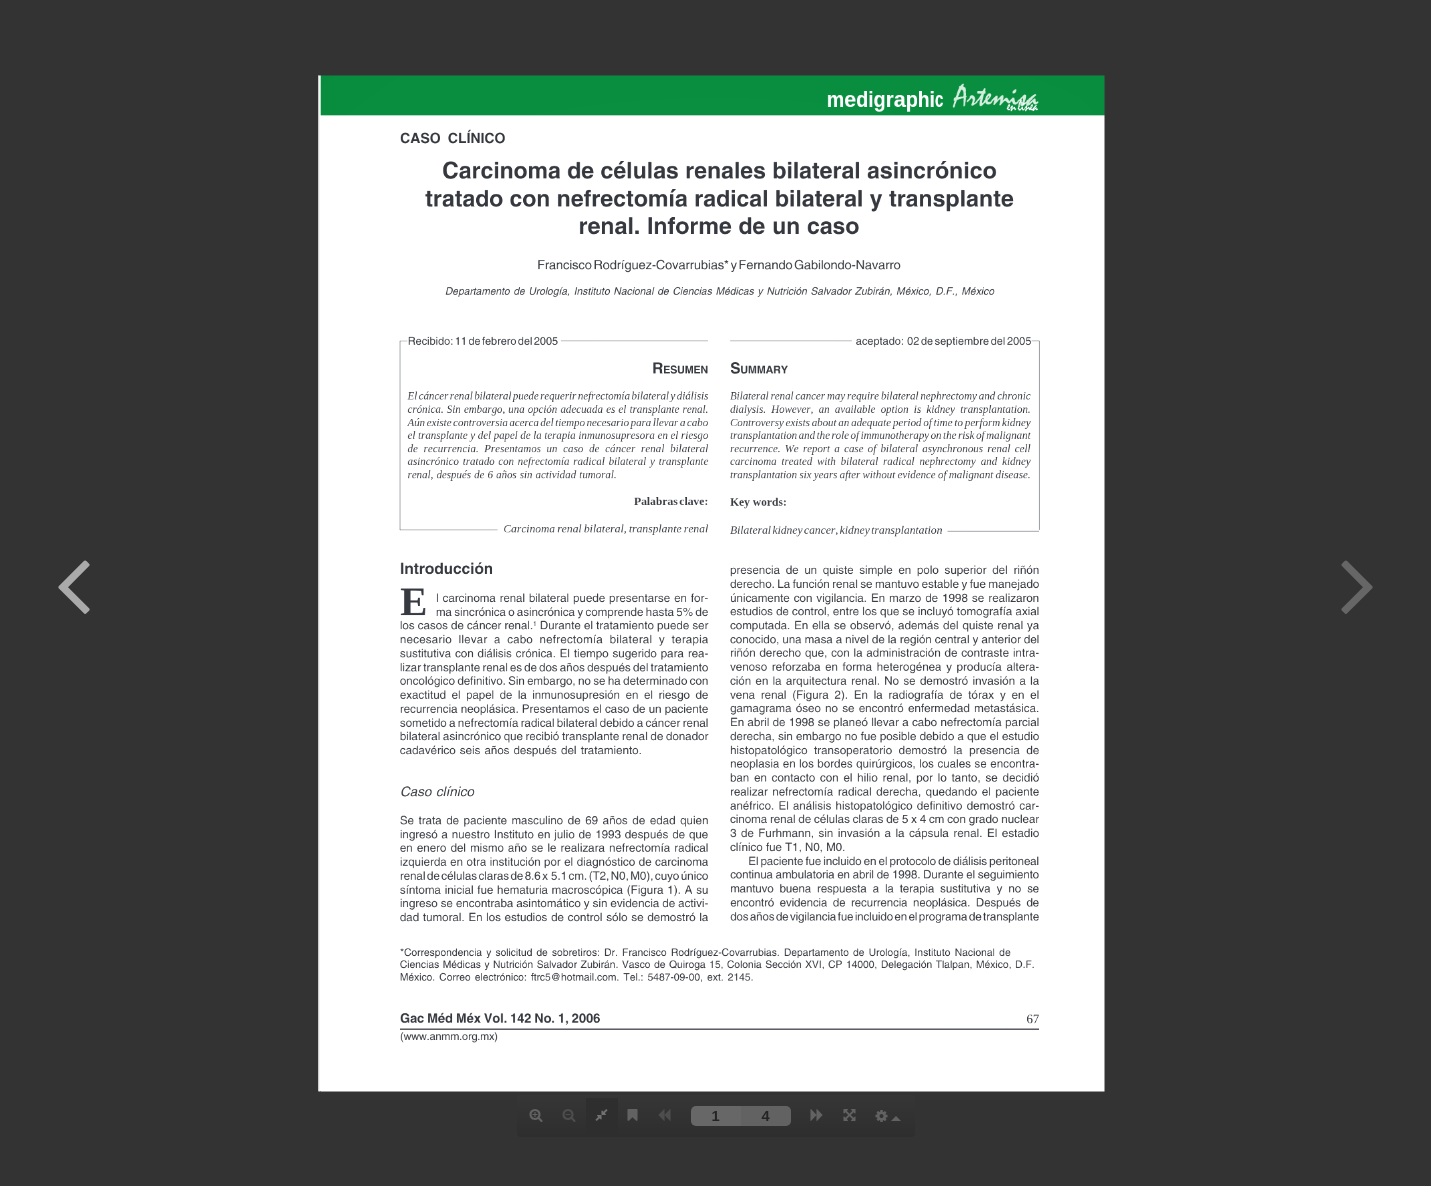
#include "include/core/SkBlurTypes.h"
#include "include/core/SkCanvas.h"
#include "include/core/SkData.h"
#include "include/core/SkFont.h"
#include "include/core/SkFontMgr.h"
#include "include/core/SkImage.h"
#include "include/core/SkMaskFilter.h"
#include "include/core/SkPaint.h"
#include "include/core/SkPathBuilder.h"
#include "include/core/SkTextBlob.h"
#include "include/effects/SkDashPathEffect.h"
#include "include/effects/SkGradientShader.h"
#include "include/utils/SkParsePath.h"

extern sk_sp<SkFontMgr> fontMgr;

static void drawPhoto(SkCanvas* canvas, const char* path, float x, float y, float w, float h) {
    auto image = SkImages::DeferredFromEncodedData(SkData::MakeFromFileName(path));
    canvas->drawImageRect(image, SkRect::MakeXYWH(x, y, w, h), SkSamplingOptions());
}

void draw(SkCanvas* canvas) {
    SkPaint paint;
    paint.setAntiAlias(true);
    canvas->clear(0xFF333333);
    drawPhoto(canvas, "assets/img1.png", 58, 75, 1315, 1062);
}
